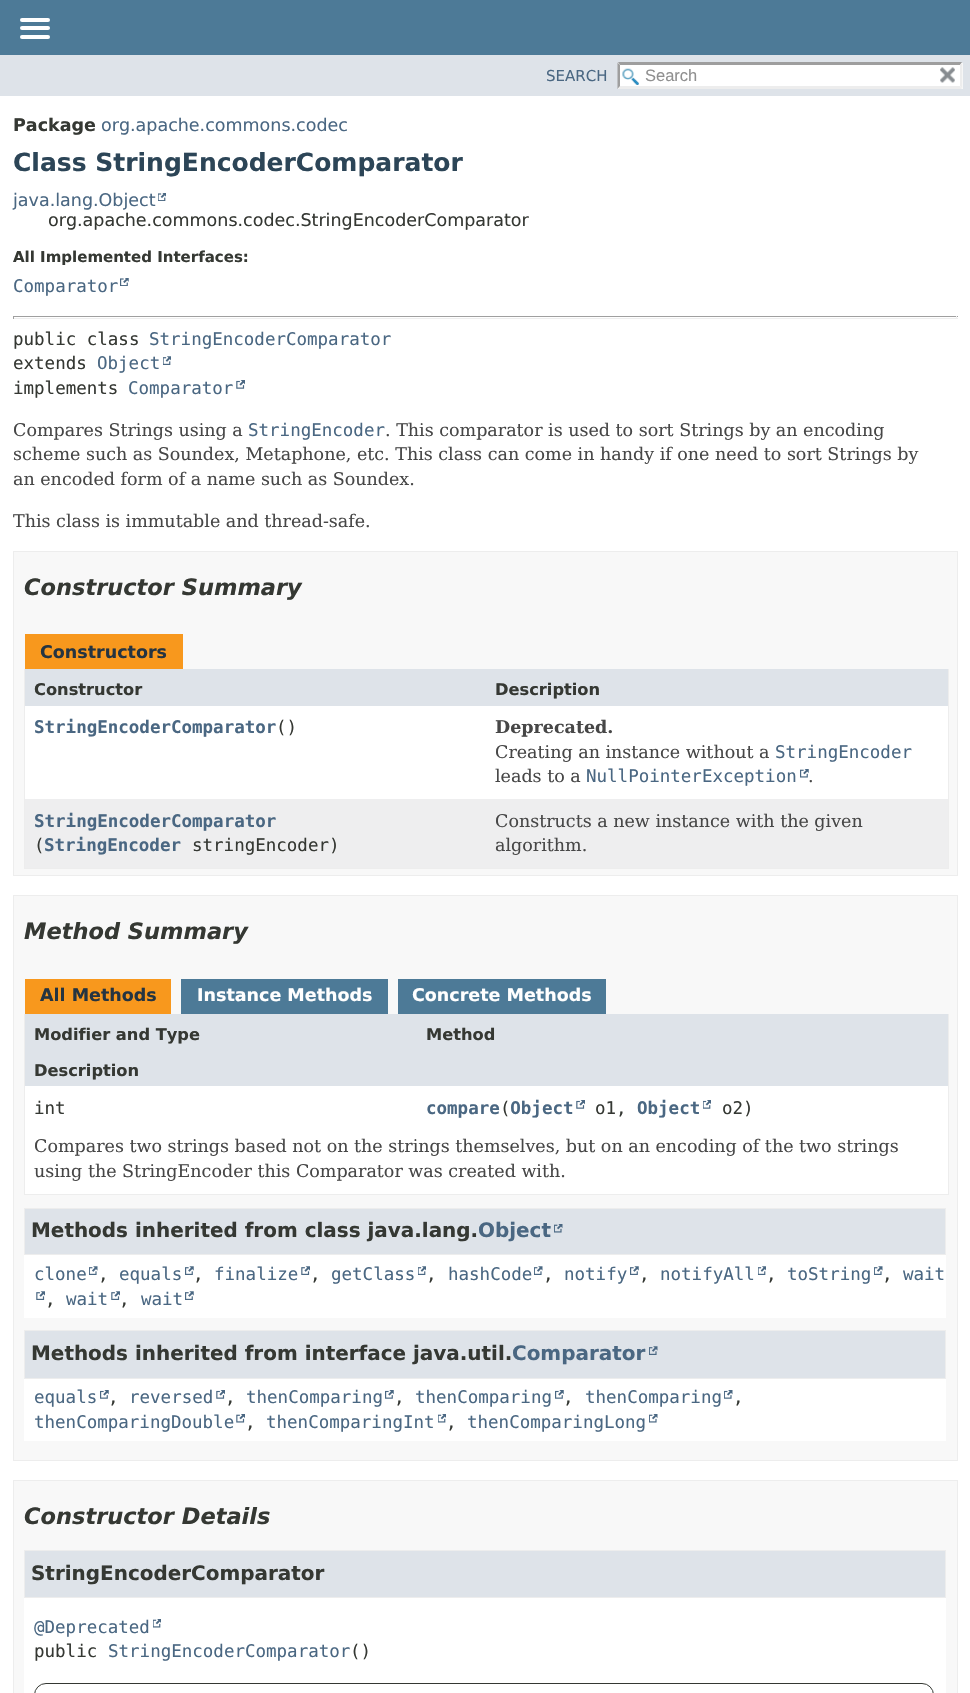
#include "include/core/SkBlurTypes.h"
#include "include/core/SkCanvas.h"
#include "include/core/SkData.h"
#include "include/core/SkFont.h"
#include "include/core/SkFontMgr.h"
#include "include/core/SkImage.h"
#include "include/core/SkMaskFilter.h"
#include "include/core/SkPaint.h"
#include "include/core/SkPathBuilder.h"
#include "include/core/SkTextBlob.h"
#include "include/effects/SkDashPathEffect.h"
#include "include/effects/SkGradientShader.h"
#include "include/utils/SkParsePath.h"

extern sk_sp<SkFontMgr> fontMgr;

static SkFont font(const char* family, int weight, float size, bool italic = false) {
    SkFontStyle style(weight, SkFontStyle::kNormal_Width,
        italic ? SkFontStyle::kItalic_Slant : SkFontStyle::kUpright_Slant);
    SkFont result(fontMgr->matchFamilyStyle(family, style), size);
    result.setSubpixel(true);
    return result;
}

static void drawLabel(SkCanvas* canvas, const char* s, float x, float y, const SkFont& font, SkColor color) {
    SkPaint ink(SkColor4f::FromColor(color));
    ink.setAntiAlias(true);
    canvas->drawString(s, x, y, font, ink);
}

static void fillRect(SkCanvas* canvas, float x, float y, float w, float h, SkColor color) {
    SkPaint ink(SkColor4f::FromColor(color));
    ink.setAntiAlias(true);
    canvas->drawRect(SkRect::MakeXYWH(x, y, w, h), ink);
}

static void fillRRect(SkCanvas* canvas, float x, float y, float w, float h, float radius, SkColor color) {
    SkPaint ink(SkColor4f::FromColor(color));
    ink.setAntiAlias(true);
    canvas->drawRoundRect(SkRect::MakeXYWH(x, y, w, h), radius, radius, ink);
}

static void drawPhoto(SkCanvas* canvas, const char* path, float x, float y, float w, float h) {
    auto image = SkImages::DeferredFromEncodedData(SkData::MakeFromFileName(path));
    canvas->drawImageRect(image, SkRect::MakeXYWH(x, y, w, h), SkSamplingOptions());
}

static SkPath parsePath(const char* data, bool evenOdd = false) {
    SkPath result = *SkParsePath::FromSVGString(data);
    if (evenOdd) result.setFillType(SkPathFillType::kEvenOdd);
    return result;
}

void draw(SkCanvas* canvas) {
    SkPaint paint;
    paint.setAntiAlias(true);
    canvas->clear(0xFFFFFFFF);
    fillRect(canvas, 0, 0, 970, 55, 0xFF4D7A97);
    fillRRect(canvas, 20, 18, 30, 4, 2, 0xFFFFFFFF);
    fillRRect(canvas, 20, 26, 30, 4, 2, 0xFFFFFFFF);
    fillRRect(canvas, 20, 35, 30, 4, 2, 0xFFFFFFFF);
    fillRect(canvas, 0, 55, 970, 41, 0xFFDEE3E9);
    SkFont font1 = font("DejaVu Sans", 400, 15);
    drawLabel(canvas, "SEARCH", 546, 81, font1, 0xFF4A6782);
    fillRect(canvas, 618, 63, 345, 26, 0xFFFFFFFF);
    drawPhoto(canvas, "assets/img1.png", 622, 68, 17, 17);
    paint.setColor(0xFF9E9E9E);
    canvas->drawPath(parsePath("M618 62H962L960 65H620Z"), paint);
    paint.setColor(0xFFEDEDED);
    canvas->drawPath(parsePath("M962.5 62.5V89L960 86V65Z"), paint);
    canvas->drawPath(parsePath("M962 89H618L620 86H960Z"), paint);
    paint.setColor(0xFF9E9E9E);
    canvas->drawPath(parsePath("M617.5 89V62.5L620 65V86Z"), paint);
    SkFont font2 = font("Liberation Sans", 400, 16.5f);
    drawLabel(canvas, "Search", 645, 81, font2, 0xFF909090);
    drawPhoto(canvas, "assets/img2.png", 940, 67, 15, 16);
    SkFont font3 = font("DejaVu Sans", 700, 17.5f);
    drawLabel(canvas, "Package", 13, 131, font3, 0xFF353833);
    SkFont font4 = font("DejaVu Sans", 400, 17.5f);
    drawLabel(canvas, "org.apache.commons.codec", 101, 131, font4, 0xFF4A6782);
    SkFont font5 = font("DejaVu Sans", 700, 25);
    drawLabel(canvas, "Class StringEncoderComparator", 13, 171, font5, 0xFF2C4557);
    drawLabel(canvas, "java.lang.Object", 13, 206, font4, 0xFF4A6782);
    drawPhoto(canvas, "assets/img3.png", 158, 193, 8, 8);
    drawLabel(canvas, "org.apache.commons.codec.StringEncoderComparator", 48, 226, font4, 0xFF353833);
    SkFont font6 = font("DejaVu Sans", 700, 15);
    drawLabel(canvas, "All Implemented Interfaces:", 13, 262, font6, 0xFF353833);
    SkFont font7 = font("DejaVu Sans Mono", 400, 17.5f);
    drawLabel(canvas, "Comparator", 13, 292, font7, 0xFF4A6782);
    drawPhoto(canvas, "assets/img4.png", 120, 278, 9, 8);
    fillRect(canvas, 13, 316, 945, 1, 0xFF9F9F9F);
    fillRect(canvas, 956, 316, 1, 3, 0xFFEEEEEE);
    fillRect(canvas, 13, 318, 945, 1, 0xFFEEEEEE);
    fillRect(canvas, 13, 316, 1, 3, 0xFF9F9F9F);
    drawLabel(canvas, "public class", 13, 345, font7, 0xFF353833);
    drawLabel(canvas, "StringEncoderComparator", 149, 345, font7, 0xFF4A6782);
    drawLabel(canvas, "extends", 13, 369, font7, 0xFF353833);
    drawLabel(canvas, "Object", 97, 369, font7, 0xFF4A6782);
    drawPhoto(canvas, "assets/img5.png", 163, 356, 8, 9);
    drawLabel(canvas, "implements", 13, 394, font7, 0xFF353833);
    drawLabel(canvas, "Comparator", 128, 394, font7, 0xFF4A6782);
    drawPhoto(canvas, "assets/img6.png", 236, 380, 9, 9);
    SkFont font8 = font("DejaVu Serif", 400, 17.5f);
    drawLabel(canvas, "Compares Strings using a", 13, 436, font8, 0xFF474747);
    drawLabel(canvas, "StringEncoder", 248, 436, font7, 0xFF4A6782);
    drawLabel(canvas, ". This comparator is used to sort Strings by an encoding", 385, 436, font8, 0xFF474747);
    drawLabel(canvas, "scheme such as Soundex, Metaphone, etc. This class can come in handy if one need to sort Strings by", 13, 460, font8, 0xFF474747);
    drawLabel(canvas, "an encoded form of a name such as Soundex.", 13, 485, font8, 0xFF474747);
    drawLabel(canvas, "This class is immutable and thread-safe.", 13, 527, font8, 0xFF474747);
    paint.setColor(0xFFF8F8F8);
    canvas->drawRect(SkRect::MakeXYWH(13.5f, 551.5f, 944, 324), paint);
    paint.setStroke(true);
    paint.setStrokeWidth(1);
    paint.setColor(0xFFEDEDED);
    canvas->drawRect(SkRect::MakeXYWH(13.5f, 551.5f, 944, 324), paint);
    SkFont font9 = font("DejaVu Sans", 700, 22.5f, true);
    drawLabel(canvas, "Constructor Summary", 24, 595, font9, 0xFF353833);
    fillRect(canvas, 25, 634, 158, 35, 0xFFF8981D);
    drawLabel(canvas, "Constructors", 40, 658, font3, 0xFF253441);
    fillRect(canvas, 948, 669, 1, 200, 0xFFEDEDED);
    fillRect(canvas, 24, 868, 925, 1, 0xFFEDEDED);
    fillRect(canvas, 24, 669, 1, 200, 0xFFEDEDED);
    fillRect(canvas, 25, 669, 923, 37, 0xFFDEE3E9);
    SkFont font10 = font("DejaVu Sans", 700, 16.25f);
    drawLabel(canvas, "Constructor", 34, 695, font10, 0xFF353833);
    drawLabel(canvas, "Description", 495, 695, font10, 0xFF353833);
    fillRect(canvas, 25, 706, 923, 93, 0xFFFFFFFF);
    SkFont font11 = font("DejaVu Sans Mono", 700, 17.5f);
    drawLabel(canvas, "StringEncoderComparator", 34, 733, font11, 0xFF4A6782);
    drawLabel(canvas, "()", 276, 733, font7, 0xFF353833);
    SkFont font12 = font("DejaVu Serif", 700, 17.5f);
    drawLabel(canvas, "Deprecated.", 495, 733, font12, 0xFF474747);
    drawLabel(canvas, "Creating an instance without a", 495, 758, font8, 0xFF474747);
    drawLabel(canvas, "StringEncoder", 775, 758, font7, 0xFF4A6782);
    drawLabel(canvas, "leads to a", 495, 782, font8, 0xFF474747);
    drawLabel(canvas, "NullPointerException", 586, 782, font7, 0xFF4A6782);
    drawPhoto(canvas, "assets/img7.png", 800, 769, 9, 9);
    drawLabel(canvas, ".", 808, 782, font8, 0xFF474747);
    fillRect(canvas, 25, 799, 923, 69, 0xFFEEEEEF);
    drawLabel(canvas, "StringEncoderComparator", 34, 827, font11, 0xFF4A6782);
    drawLabel(canvas, "(", 34, 851, font7, 0xFF353833);
    drawLabel(canvas, "StringEncoder", 44, 851, font11, 0xFF4A6782);
    drawLabel(canvas, "stringEncoder)", 192, 851, font7, 0xFF353833);
    drawLabel(canvas, "Constructs a new instance with the given", 495, 827, font8, 0xFF474747);
    drawLabel(canvas, "algorithm.", 495, 851, font8, 0xFF474747);
    paint.setStroke(false);
    paint.setColor(0xFFF8F8F8);
    canvas->drawRect(SkRect::MakeXYWH(13.5f, 895.5f, 944, 565), paint);
    paint.setStroke(true);
    paint.setColor(0xFFEDEDED);
    canvas->drawRect(SkRect::MakeXYWH(13.5f, 895.5f, 944, 565), paint);
    drawLabel(canvas, "Method Summary", 24, 939, font9, 0xFF353833);
    fillRect(canvas, 25, 979, 146, 35, 0xFFF8981D);
    drawLabel(canvas, "All Methods", 40, 1001, font3, 0xFF253441);
    fillRect(canvas, 181, 979, 207, 35, 0xFF4D7A97);
    drawLabel(canvas, "Instance Methods", 197, 1001, font3, 0xFFFFFFFF);
    fillRect(canvas, 398, 979, 208, 35, 0xFF4D7A97);
    drawLabel(canvas, "Concrete Methods", 412, 1001, font3, 0xFFFFFFFF);
    fillRect(canvas, 948, 1014, 1, 181, 0xFFEDEDED);
    fillRect(canvas, 24, 1194, 925, 1, 0xFFEDEDED);
    fillRect(canvas, 24, 1014, 1, 181, 0xFFEDEDED);
    fillRect(canvas, 25, 1014, 923, 72, 0xFFDEE3E9);
    drawLabel(canvas, "Modifier and Type", 34, 1040, font10, 0xFF353833);
    drawLabel(canvas, "Method", 426, 1040, font10, 0xFF353833);
    drawLabel(canvas, "Description", 34, 1076, font10, 0xFF353833);
    fillRect(canvas, 25, 1086, 923, 108, 0xFFFFFFFF);
    drawLabel(canvas, "int", 34, 1114, font7, 0xFF353833);
    drawLabel(canvas, "compare Object", 426, 1114, font11, 0xFF4A6782);
    drawLabel(canvas, "Object", 637, 1114, font11, 0xFF4A6782);
    drawPhoto(canvas, "assets/img8.png", 703, 1100, 8, 9);
    drawLabel(canvas, "(", 500, 1114, font7, 0xFF353833);
    drawPhoto(canvas, "assets/img6.png", 576, 1100, 9, 9);
    drawLabel(canvas, "o1,", 595, 1114, font7, 0xFF353833);
    drawLabel(canvas, "o2)", 722, 1114, font7, 0xFF353833);
    drawLabel(canvas, "Compares two strings based not on the strings themselves, but on an encoding of the two strings", 34, 1152, font8, 0xFF474747);
    drawLabel(canvas, "using the StringEncoder this Comparator was created with.", 34, 1177, font8, 0xFF474747);
    fillRect(canvas, 24, 1255, 922, 63, 0xFFFFFFFF);
    paint.setStroke(false);
    paint.setColor(0xFFDEE3E9);
    canvas->drawRect(SkRect::MakeXYWH(24.5f, 1208.5f, 921, 46), paint);
    paint.setStroke(true);
    paint.setColor(0xFFEDEDED);
    canvas->drawRect(SkRect::MakeXYWH(24.5f, 1208.5f, 921, 46), paint);
    SkFont font13 = font("DejaVu Sans", 700, 19.95f);
    drawLabel(canvas, "Methods inherited from class java.lang.", 31, 1237, font13, 0xFF353833);
    drawLabel(canvas, "Object", 478, 1237, font13, 0xFF4A6782);
    drawPhoto(canvas, "assets/img9.png", 554, 1224, 9, 9);
    drawLabel(canvas, "clone", 34, 1280, font7, 0xFF4A6782);
    drawPhoto(canvas, "assets/img10.png", 89, 1266, 9, 9);
    drawLabel(canvas, ",", 98, 1280, font7, 0xFF353833);
    drawLabel(canvas, "equals", 119, 1280, font7, 0xFF4A6782);
    drawPhoto(canvas, "assets/img11.png", 185, 1266, 9, 9);
    drawLabel(canvas, ",", 193, 1280, font7, 0xFF353833);
    drawLabel(canvas, "finalize", 214, 1280, font7, 0xFF4A6782);
    drawPhoto(canvas, "assets/img12.png", 301, 1266, 9, 9);
    drawLabel(canvas, ",", 310, 1280, font7, 0xFF353833);
    drawLabel(canvas, "getClass", 331, 1280, font7, 0xFF4A6782);
    drawPhoto(canvas, "assets/img5.png", 418, 1266, 8, 9);
    drawLabel(canvas, ",", 426, 1280, font7, 0xFF353833);
    drawLabel(canvas, "hashCode", 448, 1280, font7, 0xFF4A6782);
    drawPhoto(canvas, "assets/img10.png", 534, 1266, 9, 9);
    drawLabel(canvas, ",", 543, 1280, font7, 0xFF353833);
    drawLabel(canvas, "notify", 564, 1280, font7, 0xFF4A6782);
    drawPhoto(canvas, "assets/img11.png", 630, 1266, 9, 9);
    drawLabel(canvas, ",", 639, 1280, font7, 0xFF353833);
    drawLabel(canvas, "notifyAll", 660, 1280, font7, 0xFF4A6782);
    drawPhoto(canvas, "assets/img5.png", 758, 1266, 8, 9);
    drawLabel(canvas, ",", 766, 1280, font7, 0xFF353833);
    drawLabel(canvas, "toString", 787, 1280, font7, 0xFF4A6782);
    drawPhoto(canvas, "assets/img10.png", 874, 1266, 9, 9);
    drawLabel(canvas, ",", 882, 1280, font7, 0xFF353833);
    drawLabel(canvas, "wait", 903, 1280, font7, 0xFF4A6782);
    drawPhoto(canvas, "assets/img12.png", 36, 1291, 9, 9);
    drawLabel(canvas, ",", 45, 1305, font7, 0xFF353833);
    drawLabel(canvas, "wait", 66, 1305, font7, 0xFF4A6782);
    drawPhoto(canvas, "assets/img12.png", 111, 1291, 9, 9);
    drawLabel(canvas, ",", 119, 1305, font7, 0xFF353833);
    drawLabel(canvas, "wait", 141, 1305, font7, 0xFF4A6782);
    drawPhoto(canvas, "assets/img11.png", 185, 1291, 9, 9);
    fillRect(canvas, 24, 1379, 922, 62, 0xFFFFFFFF);
    paint.setStroke(false);
    paint.setColor(0xFFDEE3E9);
    canvas->drawRect(SkRect::MakeXYWH(24.5f, 1330.5f, 921, 48), paint);
    paint.setStroke(true);
    paint.setColor(0xFFEDEDED);
    canvas->drawRect(SkRect::MakeXYWH(24.5f, 1330.5f, 921, 48), paint);
    drawLabel(canvas, "Methods inherited from interface java.util.", 31, 1360, font13, 0xFF353833);
    drawLabel(canvas, "Comparator", 512, 1360, font13, 0xFF4A6782);
    drawPhoto(canvas, "assets/img13.png", 649, 1346, 9, 9);
    drawLabel(canvas, "equals", 34, 1403, font7, 0xFF4A6782);
    drawPhoto(canvas, "assets/img14.png", 100, 1390, 9, 9);
    drawLabel(canvas, ",", 108, 1403, font7, 0xFF353833);
    drawLabel(canvas, "reversed", 129, 1403, font7, 0xFF4A6782);
    drawPhoto(canvas, "assets/img6.png", 216, 1390, 9, 9);
    drawLabel(canvas, ",", 225, 1403, font7, 0xFF353833);
    drawLabel(canvas, "thenComparing", 246, 1403, font7, 0xFF4A6782);
    drawPhoto(canvas, "assets/img14.png", 385, 1390, 9, 9);
    drawLabel(canvas, ",", 394, 1403, font7, 0xFF353833);
    drawLabel(canvas, "thenComparing", 415, 1403, font7, 0xFF4A6782);
    drawPhoto(canvas, "assets/img14.png", 555, 1390, 9, 9);
    drawLabel(canvas, ",", 563, 1403, font7, 0xFF353833);
    drawLabel(canvas, "thenComparing", 585, 1403, font7, 0xFF4A6782);
    drawPhoto(canvas, "assets/img15.png", 724, 1390, 9, 9);
    drawLabel(canvas, ",", 733, 1403, font7, 0xFF353833);
    drawLabel(canvas, "thenComparingDouble", 34, 1428, font7, 0xFF4A6782);
    drawPhoto(canvas, "assets/img16.png", 236, 1414, 9, 9);
    drawLabel(canvas, ",", 245, 1428, font7, 0xFF353833);
    drawLabel(canvas, "thenComparingInt", 266, 1428, font7, 0xFF4A6782);
    drawPhoto(canvas, "assets/img17.png", 438, 1414, 8, 9);
    drawLabel(canvas, ",", 446, 1428, font7, 0xFF353833);
    drawLabel(canvas, "thenComparingLong", 467, 1428, font7, 0xFF4A6782);
    drawPhoto(canvas, "assets/img18.png", 649, 1414, 9, 9);
    paint.setStroke(false);
    paint.setColor(0xFFF8F8F8);
    canvas->drawRect(SkRect::MakeXYWH(13.5f, 1480.5f, 944, 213), paint);
    paint.setStroke(true);
    paint.setColor(0xFFEDEDED);
    canvas->drawRect(SkRect::MakeXYWH(13.5f, 1480.5f, 944, 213), paint);
    drawLabel(canvas, "Constructor Details", 24, 1524, font9, 0xFF353833);
    fillRect(canvas, 24, 1598, 922, 95, 0xFFFFFFFF);
    paint.setStroke(false);
    paint.setColor(0xFFDEE3E9);
    canvas->drawRect(SkRect::MakeXYWH(24.5f, 1550.5f, 921, 47), paint);
    paint.setStroke(true);
    paint.setColor(0xFFEDEDED);
    canvas->drawRect(SkRect::MakeXYWH(24.5f, 1550.5f, 921, 47), paint);
    drawLabel(canvas, "StringEncoderComparator", 31, 1580, font13, 0xFF353833);
    drawLabel(canvas, "@Deprecated", 34, 1633, font7, 0xFF4A6782);
    drawPhoto(canvas, "assets/img17.png", 153, 1619, 8, 9);
    drawLabel(canvas, "public", 34, 1657, font7, 0xFF353833);
    drawLabel(canvas, "StringEncoderComparator", 108, 1657, font7, 0xFF4A6782);
    drawLabel(canvas, "()", 350, 1657, font7, 0xFF353833);
    paint.setColor(0xFF353833);
    canvas->drawRoundRect(SkRect::MakeXYWH(34.5f, 1683.5f, 899, 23), 12.5f, 12.5f, paint);
}
